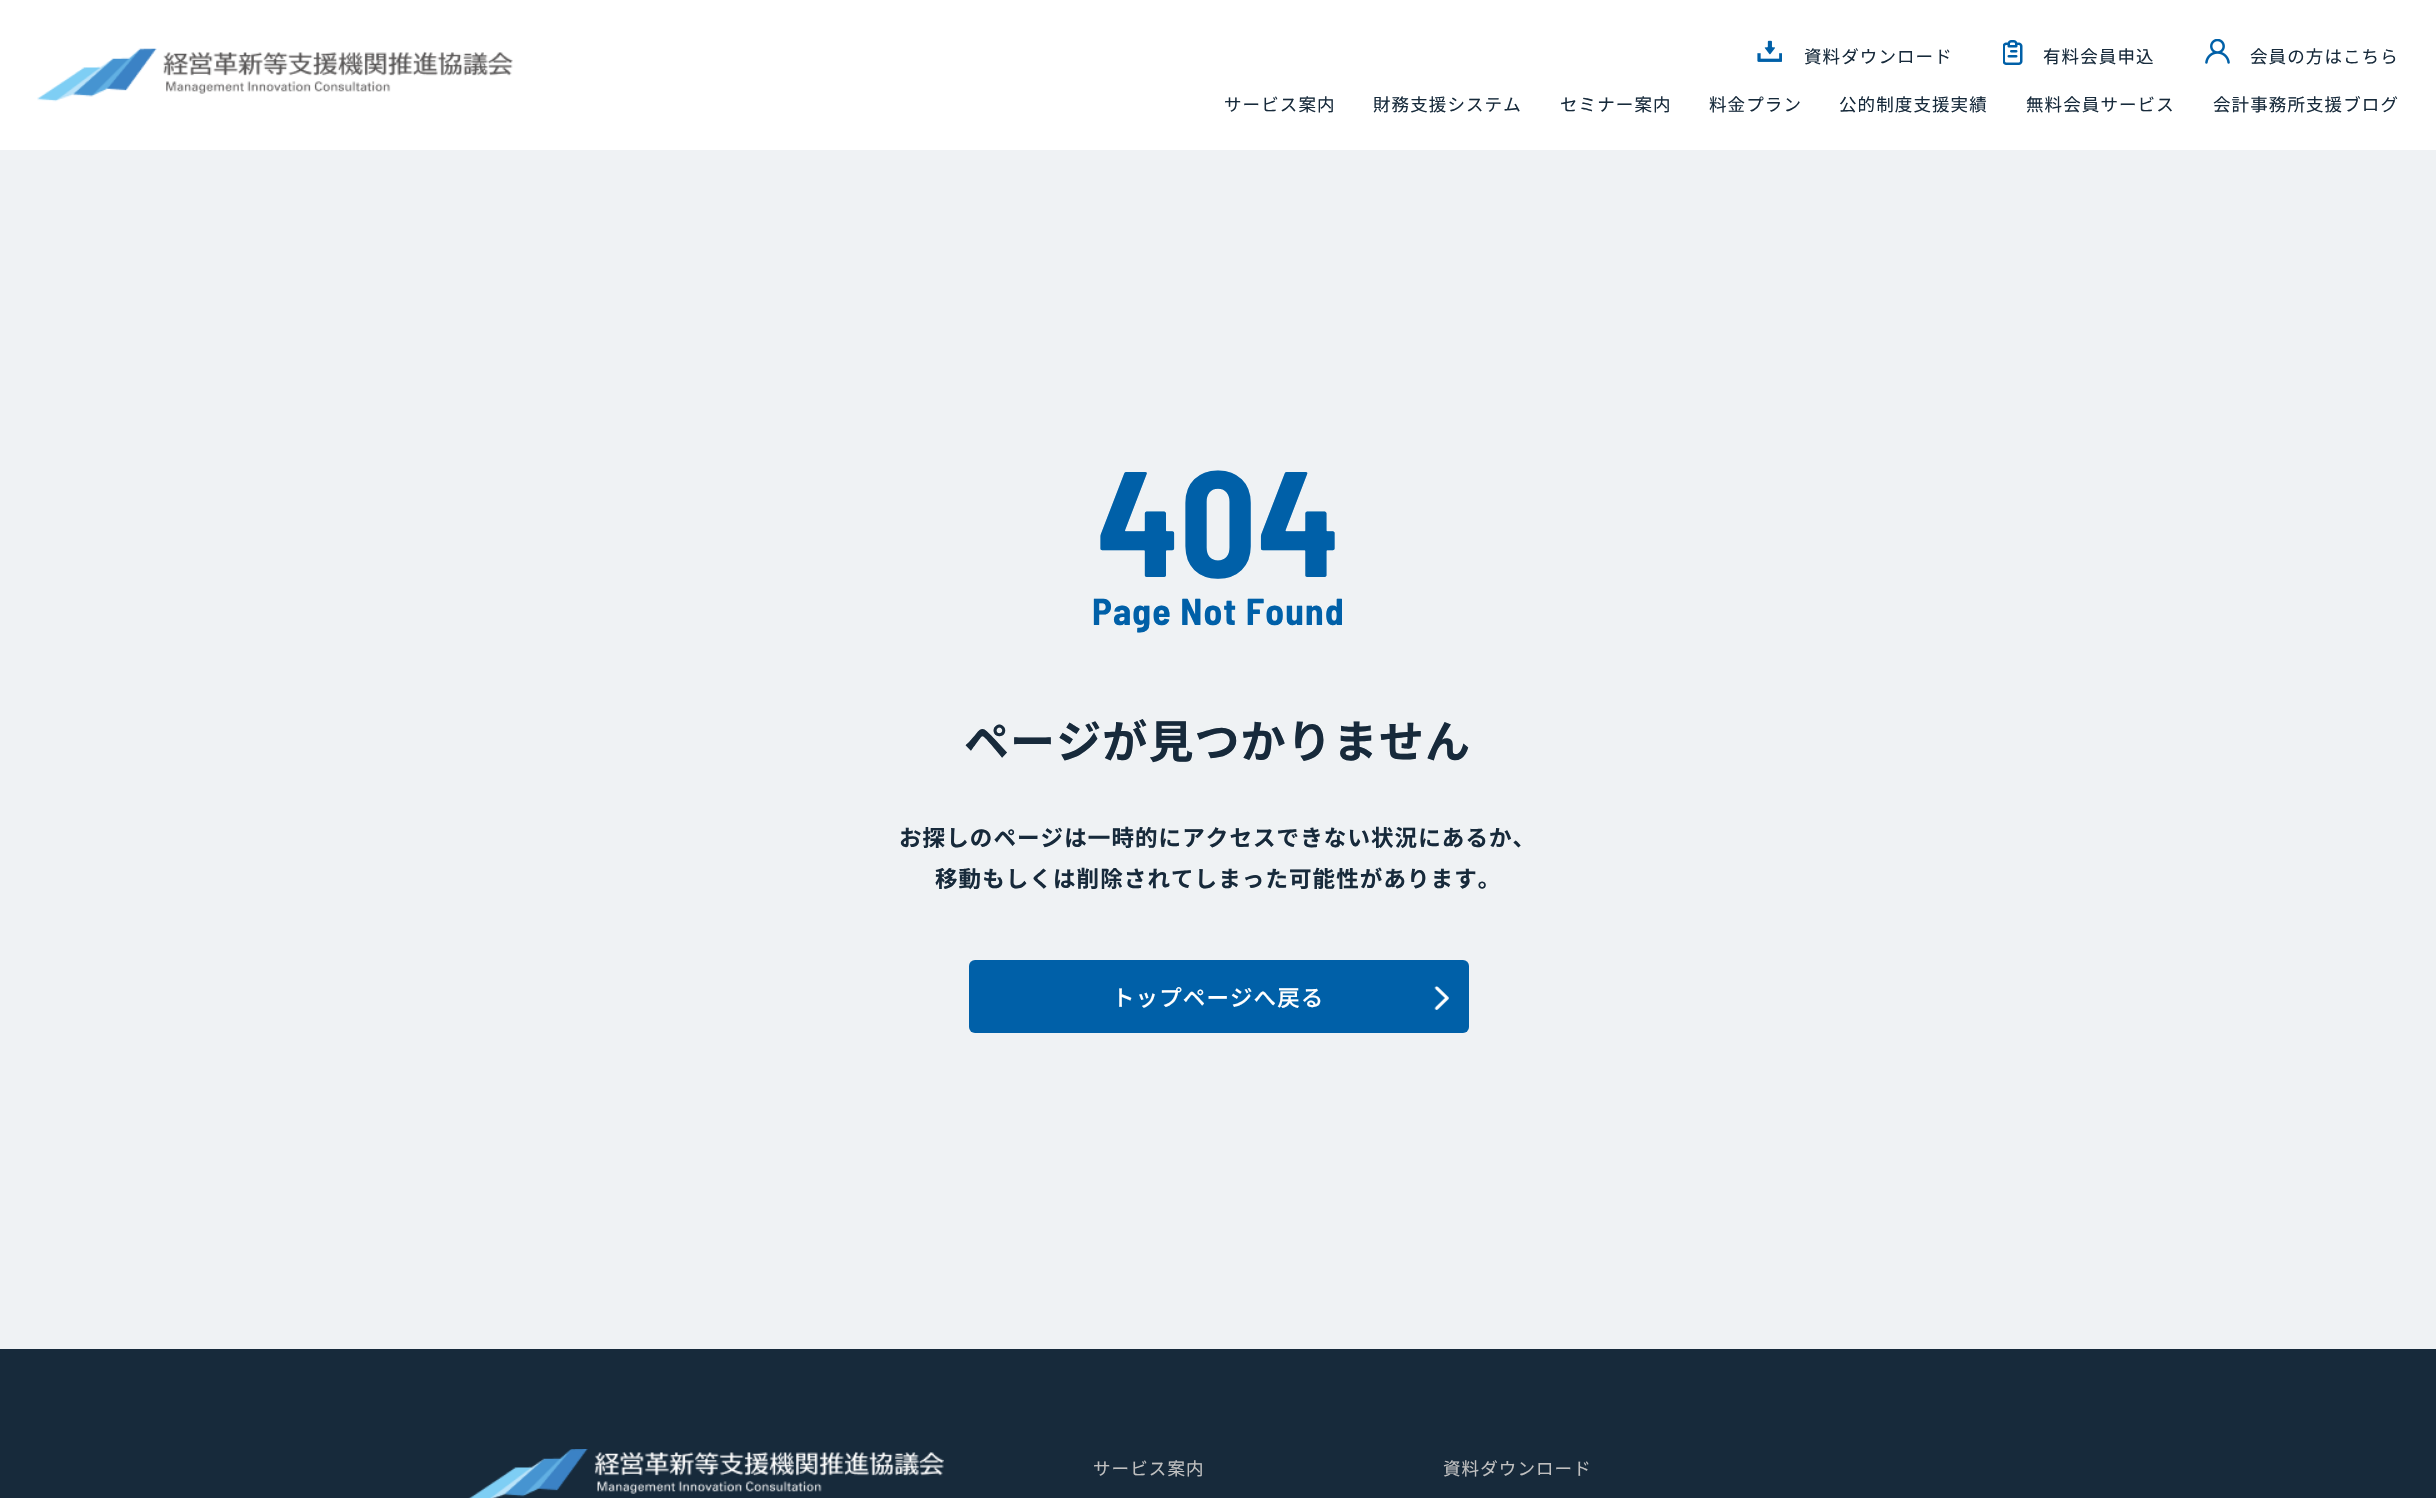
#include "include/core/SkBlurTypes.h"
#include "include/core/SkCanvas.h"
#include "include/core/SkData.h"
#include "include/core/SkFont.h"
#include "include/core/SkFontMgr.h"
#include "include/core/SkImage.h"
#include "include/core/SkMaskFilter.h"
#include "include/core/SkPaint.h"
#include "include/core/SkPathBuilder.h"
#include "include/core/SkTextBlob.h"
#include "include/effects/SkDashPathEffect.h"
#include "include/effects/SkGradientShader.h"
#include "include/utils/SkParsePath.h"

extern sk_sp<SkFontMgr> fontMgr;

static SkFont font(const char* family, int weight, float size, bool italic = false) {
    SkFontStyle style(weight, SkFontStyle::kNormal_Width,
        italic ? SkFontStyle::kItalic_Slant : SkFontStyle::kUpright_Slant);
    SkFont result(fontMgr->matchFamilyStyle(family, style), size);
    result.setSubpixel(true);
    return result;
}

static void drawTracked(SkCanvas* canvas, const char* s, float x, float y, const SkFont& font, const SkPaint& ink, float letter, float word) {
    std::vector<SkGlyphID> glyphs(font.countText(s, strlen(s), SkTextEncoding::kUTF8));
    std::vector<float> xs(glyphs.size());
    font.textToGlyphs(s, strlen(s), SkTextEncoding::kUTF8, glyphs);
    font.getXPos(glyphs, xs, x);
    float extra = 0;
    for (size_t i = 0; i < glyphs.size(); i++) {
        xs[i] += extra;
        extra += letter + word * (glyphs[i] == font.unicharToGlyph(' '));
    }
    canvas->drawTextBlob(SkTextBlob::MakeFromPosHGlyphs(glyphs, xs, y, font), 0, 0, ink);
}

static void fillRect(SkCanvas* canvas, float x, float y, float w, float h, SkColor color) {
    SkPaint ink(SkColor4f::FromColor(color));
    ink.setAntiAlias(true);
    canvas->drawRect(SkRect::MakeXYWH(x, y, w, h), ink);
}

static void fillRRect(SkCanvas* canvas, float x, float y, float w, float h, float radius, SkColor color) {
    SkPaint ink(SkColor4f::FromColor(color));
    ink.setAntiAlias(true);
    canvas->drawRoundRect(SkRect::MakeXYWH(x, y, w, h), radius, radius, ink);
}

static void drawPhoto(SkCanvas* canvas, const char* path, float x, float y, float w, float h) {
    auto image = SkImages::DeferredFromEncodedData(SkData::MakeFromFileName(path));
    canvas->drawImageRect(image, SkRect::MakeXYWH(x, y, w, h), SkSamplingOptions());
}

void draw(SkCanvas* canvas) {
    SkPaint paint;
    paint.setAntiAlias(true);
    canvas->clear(0xFF172A3B);
    fillRect(canvas, 0, 0, 2436, 150, 0xFFFFFFFF);
    drawPhoto(canvas, "assets/img1.png", 37, 48, 476, 54);
    drawPhoto(canvas, "assets/img2.png", 1757, 40, 25, 22);
    SkFont font1 = font("Noto Sans JP", 400, 17.5f);
    paint.setColor(0xFF172A3B);
    drawTracked(canvas, "資料ダウンロード", 1804, 63, font1, paint, 1.1f, 0);
    drawPhoto(canvas, "assets/img3.png", 2003, 40, 20, 25);
    drawTracked(canvas, "有料会員申込", 2043, 63, font1, paint, 1.1f, 0);
    drawPhoto(canvas, "assets/img4.png", 2205, 39, 25, 25);
    drawTracked(canvas, "会員の方はこちら", 2250, 63, font1, paint, 1.1f, 0);
    drawTracked(canvas, "サービス案内", 1224, 111, font1, paint, 1.1f, 0);
    drawTracked(canvas, "財務支援システム", 1373, 111, font1, paint, 1.1f, 0);
    drawTracked(canvas, "セミナー案内", 1560, 111, font1, paint, 1.1f, 0);
    drawTracked(canvas, "料金プラン", 1709, 111, font1, paint, 1.1f, 0);
    drawTracked(canvas, "公的制度支援実績", 1839, 111, font1, paint, 1.1f, 0);
    drawTracked(canvas, "無料会員サービス", 2026, 111, font1, paint, 1.1f, 0);
    drawTracked(canvas, "会計事務所支援ブログ", 2213, 111, font1, paint, 1.1f, 0);
    fillRect(canvas, 0, 150, 2436, 1199, 0xFFEFF2F4);
    SkFont font2 = font("Barlow Semi Condensed", 700, 150);
    paint.setColor(0xFF0060A8);
    drawTracked(canvas, "404", 1097, 577, font2, paint, 1.1f, 0);
    SkFont font3 = font("Barlow Semi Condensed", 700, 37.5f);
    drawTracked(canvas, "Page Not Found", 1092, 625, font3, paint, 1.1f, 0);
    SkFont font4 = font("Noto Sans JP", 700, 45);
    paint.setColor(0xFF172A3B);
    drawTracked(canvas, "ページが見つかりません", 964, 758, font4, paint, 1.1f, 0);
    SkFont font5 = font("Noto Sans JP", 700, 22.5f);
    drawTracked(canvas, "お探しのページは一時的にアクセスできない状況にあるか、", 899, 846, font5, paint, 1.1f, 0);
    drawTracked(canvas, "移動もしくは削除されてしまった可能性があります。", 935, 887, font5, paint, 1.1f, 0);
    fillRRect(canvas, 969, 960, 500, 73, 6, 0xFF0060A8);
    SkFont font6 = font("Noto Sans JP", 500, 22.5f);
    paint.setColor(0xFFFFFFFF);
    drawTracked(canvas, "トップページへ戻る", 1112, 1006, font6, paint, 1.1f, 0);
    drawPhoto(canvas, "assets/img5.png", 1434, 986, 15, 24);
    drawPhoto(canvas, "assets/img6.png", 468, 1449, 476, 49);
    paint.setColor(0xFFC0C0C0);
    drawTracked(canvas, "サービス案内", 1093, 1475, font1, paint, 1.1f, 0);
    drawTracked(canvas, "資料ダウンロード", 1443, 1475, font1, paint, 1.1f, 0);
}
